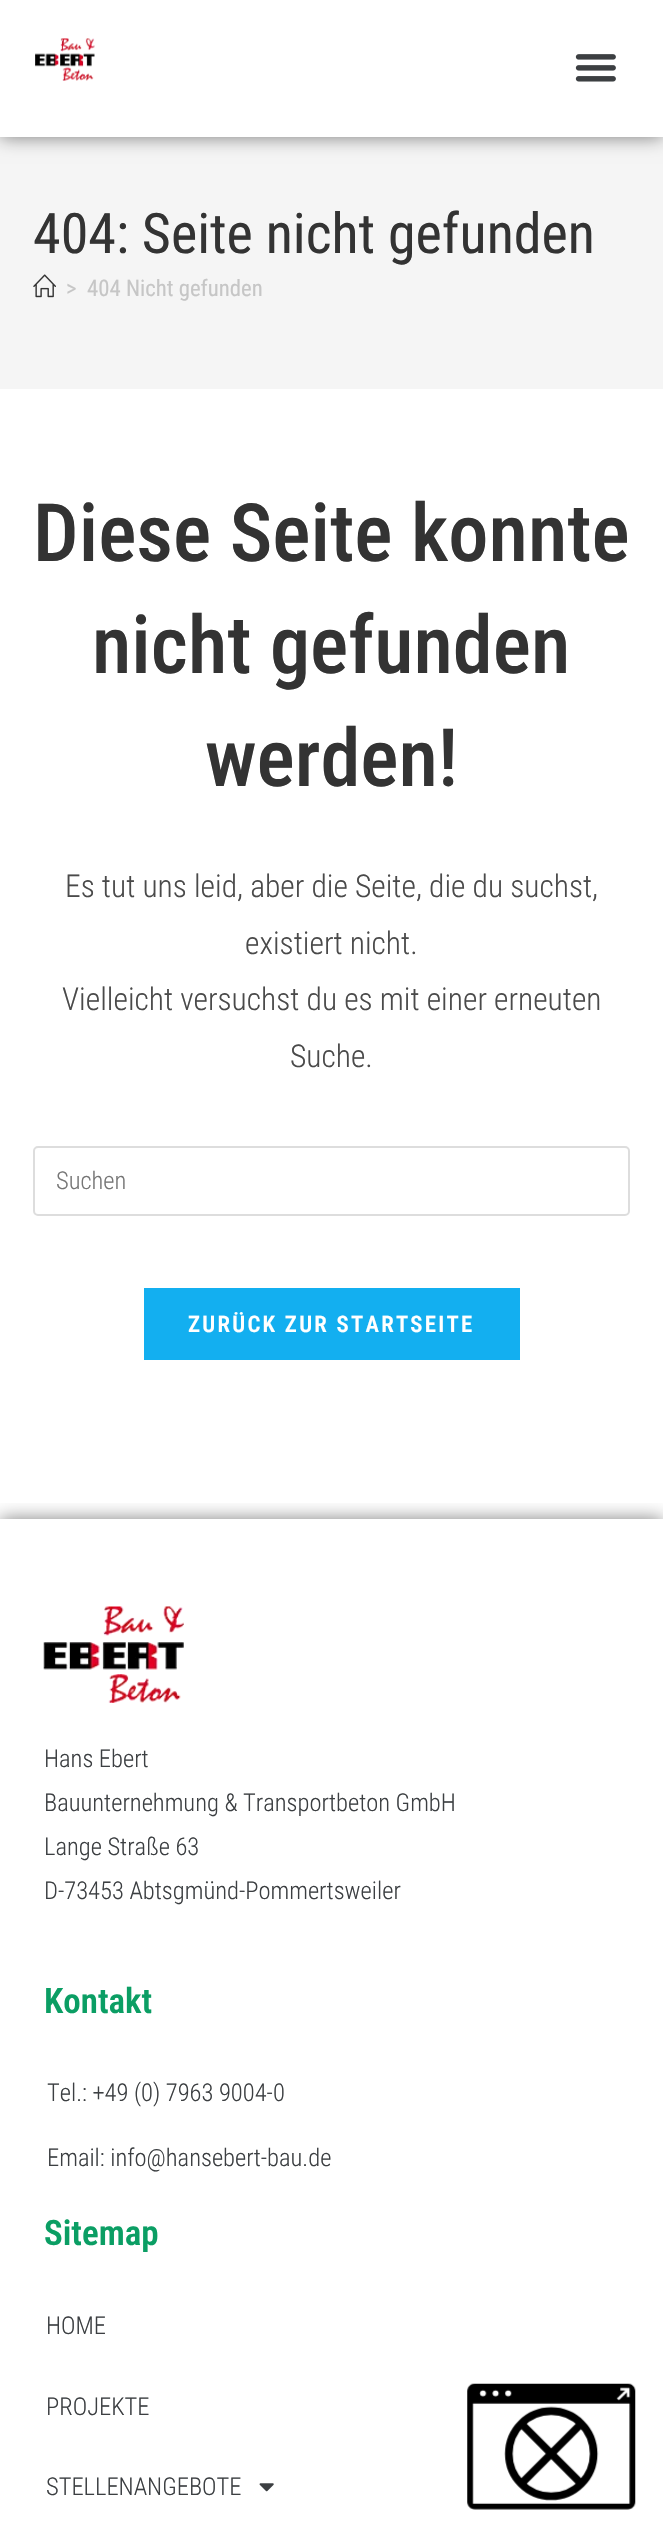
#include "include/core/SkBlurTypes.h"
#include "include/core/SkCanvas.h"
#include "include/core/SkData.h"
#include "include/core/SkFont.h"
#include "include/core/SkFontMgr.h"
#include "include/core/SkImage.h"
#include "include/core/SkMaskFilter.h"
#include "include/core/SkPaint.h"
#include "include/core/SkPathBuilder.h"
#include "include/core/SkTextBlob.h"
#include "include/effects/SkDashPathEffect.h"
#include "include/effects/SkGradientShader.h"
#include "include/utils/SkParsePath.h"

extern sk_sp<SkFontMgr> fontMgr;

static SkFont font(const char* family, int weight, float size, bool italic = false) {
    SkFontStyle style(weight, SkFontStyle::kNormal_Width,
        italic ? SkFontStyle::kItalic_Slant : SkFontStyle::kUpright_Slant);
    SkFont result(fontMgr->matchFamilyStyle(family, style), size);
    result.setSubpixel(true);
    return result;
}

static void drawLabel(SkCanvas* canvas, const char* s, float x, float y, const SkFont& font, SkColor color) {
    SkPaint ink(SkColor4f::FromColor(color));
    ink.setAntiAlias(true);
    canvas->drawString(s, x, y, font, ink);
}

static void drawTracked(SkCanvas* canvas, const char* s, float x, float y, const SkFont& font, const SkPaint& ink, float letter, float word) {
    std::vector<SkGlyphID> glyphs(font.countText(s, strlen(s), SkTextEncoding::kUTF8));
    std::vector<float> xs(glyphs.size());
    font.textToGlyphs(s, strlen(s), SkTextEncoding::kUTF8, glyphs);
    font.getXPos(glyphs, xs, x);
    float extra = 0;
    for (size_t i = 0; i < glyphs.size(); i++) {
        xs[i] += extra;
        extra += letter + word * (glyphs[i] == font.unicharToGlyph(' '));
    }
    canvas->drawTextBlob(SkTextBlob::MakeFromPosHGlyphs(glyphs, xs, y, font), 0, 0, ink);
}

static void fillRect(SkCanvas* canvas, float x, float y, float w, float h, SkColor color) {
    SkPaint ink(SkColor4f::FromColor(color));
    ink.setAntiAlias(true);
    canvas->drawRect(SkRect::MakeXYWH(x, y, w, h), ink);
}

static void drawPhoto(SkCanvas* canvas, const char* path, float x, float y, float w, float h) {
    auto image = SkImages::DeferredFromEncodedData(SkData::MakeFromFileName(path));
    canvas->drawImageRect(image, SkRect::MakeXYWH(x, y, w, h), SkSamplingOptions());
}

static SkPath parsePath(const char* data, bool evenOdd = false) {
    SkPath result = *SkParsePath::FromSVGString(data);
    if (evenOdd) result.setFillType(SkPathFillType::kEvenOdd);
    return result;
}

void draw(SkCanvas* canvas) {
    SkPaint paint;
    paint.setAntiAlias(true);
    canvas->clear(0xFFFFFFFF);
    fillRect(canvas, 0, 137, 663, 252, 0xFFF5F5F5);
    canvas->save();
    canvas->clipPath(parsePath("M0 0H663V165H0ZM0 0H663V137H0Z", true), true);
    paint.setColor(0x80000000);
    paint.setMaskFilter(SkMaskFilter::MakeBlur(kNormal_SkBlurStyle, 9));
    canvas->drawRect(SkRect::MakeXYWH(0, 0, 663, 137), paint);
    paint.setMaskFilter(nullptr);
    canvas->restore();
    drawPhoto(canvas, "assets/img1.png", 35, 38, 60, 43);
    drawPhoto(canvas, "assets/img2.png", 575, 54, 41, 28);
    SkFont font1 = font("Roboto Condensed", 400, 56);
    drawLabel(canvas, "404: Seite nicht gefunden", 33, 253, font1, 0xFF333333);
    drawPhoto(canvas, "assets/img3.png", 33, 274, 23, 24);
    SkFont font2 = font("Roboto Condensed", 400, 22.75f);
    drawLabel(canvas, ">", 66, 296, font2, 0xFFC6C6C6);
    drawLabel(canvas, "404 Nicht gefunden", 87, 296, font2, 0xFFC6C6C6);
    SkFont font3 = font("Roboto Condensed", 500, 80.5f);
    drawLabel(canvas, "Diese Seite konnte", 33, 561, font3, 0xFF333333);
    drawLabel(canvas, "nicht gefunden", 92, 673, font3, 0xFF333333);
    drawLabel(canvas, "werden!", 205, 786, font3, 0xFF333333);
    SkFont font4 = font("Roboto Condensed", 300, 31.5f);
    drawLabel(canvas, "Es tut uns leid, aber die Seite, die du suchst,", 65, 897, font4, 0xFF4A4A4A);
    drawLabel(canvas, "existiert nicht.", 245, 954, font4, 0xFF4A4A4A);
    drawLabel(canvas, "Vielleicht versuchst du es mit einer erneuten", 62, 1010, font4, 0xFF4A4A4A);
    drawLabel(canvas, "Suche.", 290, 1067, font4, 0xFF4A4A4A);
    paint.setStroke(true);
    paint.setStrokeWidth(2);
    paint.setColor(0xFFDDDDDD);
    canvas->drawRoundRect(SkRect::MakeXYWH(34, 1147, 595, 68), 4, 4, paint);
    SkFont font5 = font("Roboto Condensed", 300, 24.5f);
    drawLabel(canvas, "Suchen", 56, 1189, font5, 0xFF757575);
    fillRect(canvas, 144, 1288, 376, 72, 0xFF13AFF0);
    SkFont font6 = font("Roboto Condensed", 600, 22.75f);
    paint.setStroke(false);
    paint.setColor(0xFFFFFFFF);
    drawTracked(canvas, "ZURÜCK ZUR STARTSEITE", 188, 1332, font6, paint, 2.25f, 0);
    canvas->save();
    canvas->clipRect(SkRect::MakeXYWH(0, 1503, 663, 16));
    paint.setColor(0x80000000);
    paint.setMaskFilter(SkMaskFilter::MakeBlur(kNormal_SkBlurStyle, 9));
    canvas->drawRect(SkRect::MakeXYWH(0, 1519, 663, 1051), paint);
    paint.setMaskFilter(nullptr);
    canvas->restore();
    drawPhoto(canvas, "assets/img4.png", 43, 1606, 141, 97);
    drawLabel(canvas, "Hans Ebert", 44, 1767, font5, 0xFF3C3F42);
    drawLabel(canvas, "Bauunternehmung & Transportbeton GmbH", 44, 1811, font5, 0xFF3C3F42);
    drawLabel(canvas, "Lange Straße 63", 44, 1855, font5, 0xFF3C3F42);
    drawLabel(canvas, "D-73453 Abtsgmünd-Pommertsweiler", 44, 1899, font5, 0xFF3C3F42);
    SkFont font7 = font("Roboto Condensed", 600, 35);
    drawLabel(canvas, "Kontakt", 44, 2013, font7, 0xFF0B9E64);
    drawLabel(canvas, "Tel.: +49 (0) 7963 9004-0", 47, 2101, font5, 0xFF3C3F42);
    drawLabel(canvas, "Email: info@hansebert-bau.de", 47, 2166, font5, 0xFF3C3F42);
    drawLabel(canvas, "Sitemap", 44, 2245, font7, 0xFF0B9E64);
    drawLabel(canvas, "HOME", 46, 2334, font5, 0xFF3C3F42);
    drawLabel(canvas, "PROJEKTE", 46, 2415, font5, 0xFF3C3F42);
    drawLabel(canvas, "STELLENANGEBOTE", 46, 2495, font5, 0xFF3C3F42);
    drawPhoto(canvas, "assets/img5.png", 259, 2483, 15, 9);
    drawPhoto(canvas, "assets/img6.png", 467, 2383, 169, 127);
}
